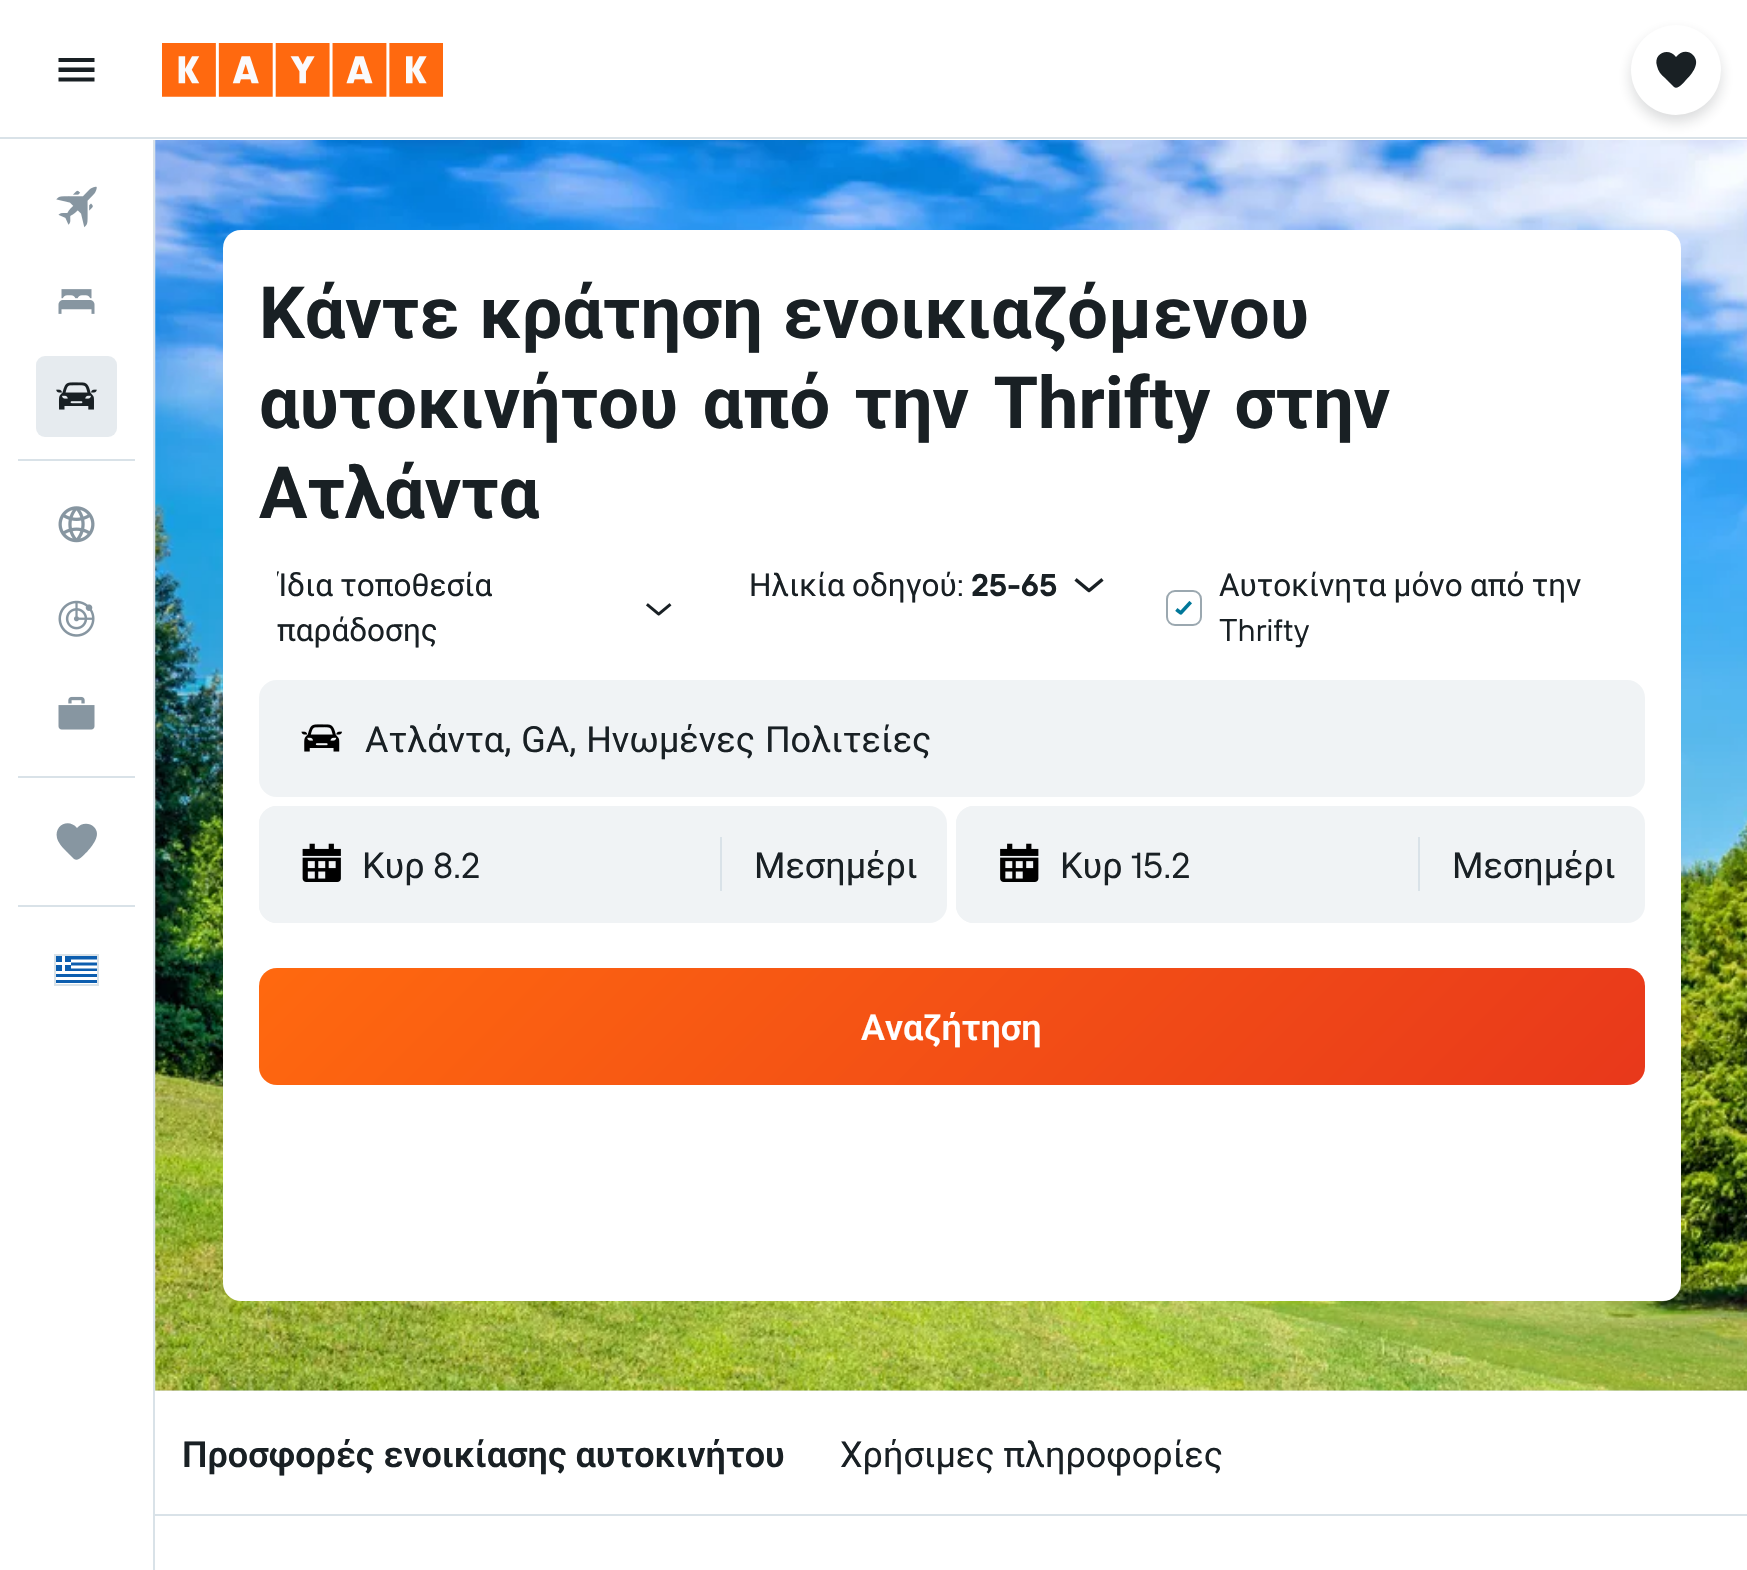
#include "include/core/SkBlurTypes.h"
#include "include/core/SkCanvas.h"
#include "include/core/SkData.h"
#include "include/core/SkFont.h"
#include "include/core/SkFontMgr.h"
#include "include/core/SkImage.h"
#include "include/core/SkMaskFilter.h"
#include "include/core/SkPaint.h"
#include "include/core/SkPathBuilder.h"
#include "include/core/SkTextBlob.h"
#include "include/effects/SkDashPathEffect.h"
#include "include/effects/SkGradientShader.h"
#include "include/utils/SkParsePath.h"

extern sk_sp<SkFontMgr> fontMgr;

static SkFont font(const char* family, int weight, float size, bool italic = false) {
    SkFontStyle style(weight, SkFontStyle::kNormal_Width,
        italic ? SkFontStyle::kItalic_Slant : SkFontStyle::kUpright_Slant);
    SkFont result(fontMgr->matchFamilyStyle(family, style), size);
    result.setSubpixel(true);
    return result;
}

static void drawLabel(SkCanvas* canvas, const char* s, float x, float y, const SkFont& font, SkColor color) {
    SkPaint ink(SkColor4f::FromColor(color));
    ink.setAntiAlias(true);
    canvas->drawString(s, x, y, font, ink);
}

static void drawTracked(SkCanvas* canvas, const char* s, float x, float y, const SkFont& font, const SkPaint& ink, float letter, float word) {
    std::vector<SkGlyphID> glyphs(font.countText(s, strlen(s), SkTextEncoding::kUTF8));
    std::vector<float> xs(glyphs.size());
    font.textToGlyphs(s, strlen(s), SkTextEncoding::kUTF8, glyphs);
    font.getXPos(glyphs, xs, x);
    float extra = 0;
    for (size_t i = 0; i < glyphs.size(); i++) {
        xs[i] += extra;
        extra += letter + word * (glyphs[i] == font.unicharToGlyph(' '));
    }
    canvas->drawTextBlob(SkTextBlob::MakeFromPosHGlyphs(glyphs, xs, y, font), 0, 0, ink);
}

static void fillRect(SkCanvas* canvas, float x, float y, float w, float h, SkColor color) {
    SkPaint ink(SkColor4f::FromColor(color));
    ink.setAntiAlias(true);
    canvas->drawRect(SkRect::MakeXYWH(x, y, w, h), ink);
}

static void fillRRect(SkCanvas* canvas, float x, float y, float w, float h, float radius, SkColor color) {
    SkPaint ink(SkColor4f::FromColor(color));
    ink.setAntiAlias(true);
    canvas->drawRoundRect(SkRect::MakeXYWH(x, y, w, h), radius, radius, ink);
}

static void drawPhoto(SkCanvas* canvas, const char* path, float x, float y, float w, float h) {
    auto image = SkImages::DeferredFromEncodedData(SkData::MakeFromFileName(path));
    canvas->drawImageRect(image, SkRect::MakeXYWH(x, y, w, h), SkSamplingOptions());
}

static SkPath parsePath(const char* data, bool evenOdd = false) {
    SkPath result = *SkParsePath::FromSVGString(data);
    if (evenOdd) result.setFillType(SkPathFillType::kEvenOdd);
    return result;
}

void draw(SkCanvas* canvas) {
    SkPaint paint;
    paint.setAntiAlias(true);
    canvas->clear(0xFFFFFFFF);
    fillRect(canvas, 0, 137, 1747, 2, 0xFFD9E2E8);
    paint.setColor(0xFF192024);
    canvas->drawPath(parsePath("M58.5 81.5H94.5V77.5H58.5ZM58.5 72H94.5V67.5H58.5ZM58.5 58V62H94.5V58Z"), paint);
    drawPhoto(canvas, "assets/img1.png", 162, 43, 281, 54);
    fillRect(canvas, 155, 140, 1592, 1251, 0xFFE5EBF0);
    drawPhoto(canvas, "assets/img8.png", 155, 140, 1592, 1251);
    paint.setColor(0x29192024);
    paint.setMaskFilter(SkMaskFilter::MakeBlur(kNormal_SkBlurStyle, 7));
    canvas->drawRoundRect(SkRect::MakeXYWH(1631, 32, 90, 90), 45, 45, paint);
    paint.setMaskFilter(nullptr);
    paint.setColor(0xFFFFFFFF);
    canvas->drawCircle(1676, 70, 45, paint);
    paint.setColor(0xFF192024);
    canvas->drawPath(parsePath("M1693 55C1688 50 1681 51 1676 57C1669 47 1653 53 1657 66C1658 71 1661 75 1665 78L1674 87C1678 90 1684 82 1686 80C1692 74 1701 63 1693 55Z"), paint);
    fillRect(canvas, 153, 140, 2, 1430, 0xFFD9E2E8);
    drawPhoto(canvas, "assets/img2.png", 56, 186, 41, 42);
    drawPhoto(canvas, "assets/img3.png", 58, 289, 37, 25);
    fillRRect(canvas, 36, 356, 81, 81, 9, 0xFFE6EBEF);
    drawPhoto(canvas, "assets/img4.png", 56, 382, 41, 28);
    fillRect(canvas, 18, 459, 117, 2, 0xFFD9E2E8);
    drawPhoto(canvas, "assets/img5.png", 58, 506, 37, 37);
    drawPhoto(canvas, "assets/img6.png", 58, 600, 37, 37);
    drawPhoto(canvas, "assets/img7.png", 58, 696, 37, 34);
    fillRect(canvas, 18, 776, 117, 2, 0xFFD9E2E8);
    paint.setColor(0xFF8796A1);
    canvas->drawPath(parsePath("M94 827C89 822 81 823 77 828C69 818 54 825 57 838C58 842 62 847 65 850L74 859C79 862 84 854 87 852C92 846 102 835 94 827Z"), paint);
    fillRect(canvas, 18, 905, 117, 2, 0xFFD9E2E8);
    paint.setStroke(true);
    paint.setStrokeWidth(2);
    paint.setColor(0xFFD9E2E8);
    canvas->drawRect(SkRect::MakeXYWH(55, 955, 43, 30), paint);
    fillRect(canvas, 56, 956, 41, 27, 0xFF0D5EAF);
    paint.setStrokeWidth(3);
    paint.setColor(0xFFFFFFFF);
    canvas->drawPath(parsePath("M63.5 956V972.5M56 963.5H71M71 961H97M97 967H71M56 972.5H97M97 978.5H56"), paint);
    fillRRect(canvas, 223, 230, 1458, 1071, 18, 0xFFFFFFFF);
    SkFont font1 = font("Roboto", 700, 72);
    paint.setStroke(false);
    paint.setColor(0xFF192024);
    drawTracked(canvas, "Κάντε κράτηση ενοικιαζόμενου", 259, 338, font1, paint, 0, 2);
    drawTracked(canvas, "αυτοκινήτου από την Thrifty στην", 259, 428, font1, paint, 0, 6.5f);
    drawLabel(canvas, "Ατλάντα", 259, 518, font1, 0xFF192024);
    canvas->save();
    canvas->clipRect(SkRect::MakeXYWH(277, 563, 353, 90));
    SkFont font2 = font("Roboto", 400, 31.5f);
    drawTracked(canvas, "Ίδια τοποθεσία", 277, 596, font2, paint, 0, -0.5f);
    canvas->restore();
    drawLabel(canvas, "παράδοσης", 277, 641, font2, 0xFF192024);
    drawPhoto(canvas, "assets/img9.png", 646, 603, 26, 13);
    drawTracked(canvas, "Ηλικία οδηγού", 749, 596, font2, paint, 0, -0.5f);
    SkFont font3 = font("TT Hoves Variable", 400, 31.5f);
    drawLabel(canvas, ":", 957, 596, font3, 0xFF192024);
    SkFont font4 = font("TT Hoves Variable", 600, 31.5f);
    drawLabel(canvas, "25-65", 971, 596, font4, 0xFF192024);
    drawPhoto(canvas, "assets/img10.png", 1074, 578, 30, 15);
    drawPhoto(canvas, "assets/img11.png", 1175, 601, 17, 14);
    paint.setStroke(true);
    paint.setStrokeWidth(2);
    paint.setColor(0xFF9BA8B0);
    canvas->drawRoundRect(SkRect::MakeXYWH(1167, 591, 34, 34), 8, 8, paint);
    paint.setStroke(false);
    paint.setColor(0xFF192024);
    drawTracked(canvas, "Αυτοκίνητα μόνο από την", 1219, 596, font2, paint, 0, -0.5f);
    drawLabel(canvas, "Thrifty", 1219, 641, font3, 0xFF192024);
    paint.setColor(0xFFF0F3F5);
    canvas->drawRoundRect(SkRect::MakeXYWH(260, 681, 1384, 115), 17, 17, paint);
    paint.setStroke(true);
    canvas->drawRoundRect(SkRect::MakeXYWH(260, 681, 1384, 115), 17, 17, paint);
    drawPhoto(canvas, "assets/img12.png", 301, 724, 41, 28);
    SkFont font5 = font("Roboto", 400, 36);
    paint.setStroke(false);
    paint.setColor(0xFF192024);
    drawTracked(canvas, "Ατλάντα, GA, Ηνωμένες Πολιτείες", 365, 752, font5, paint, 0, 1);
    fillRRect(canvas, 259, 806, 688, 117, 18, 0xFFF0F3F5);
    fillRRect(canvas, 259, 806, 459, 117, 18, 0xFFF0F3F5);
    drawPhoto(canvas, "assets/img13.png", 302, 843, 39, 39);
    drawLabel(canvas, "Κυρ", 362, 878, font5, 0xFF192024);
    SkFont font6 = font("TT Hoves Variable", 400, 36);
    drawLabel(canvas, "8.2", 433, 878, font6, 0xFF192024);
    fillRect(canvas, 720, 837, 2, 54, 0xFFD9E2E8);
    drawLabel(canvas, "Μεσημέρι", 754, 878, font5, 0xFF192024);
    fillRRect(canvas, 956, 806, 689, 117, 18, 0xFFF0F3F5);
    fillRRect(canvas, 956, 806, 459, 117, 18, 0xFFF0F3F5);
    drawPhoto(canvas, "assets/img14.png", 1000, 843, 39, 39);
    drawLabel(canvas, "Κυρ", 1060, 878, font5, 0xFF192024);
    drawLabel(canvas, "15.2", 1131, 878, font6, 0xFF192024);
    fillRect(canvas, 1418, 837, 2, 54, 0xFFD9E2E8);
    drawLabel(canvas, "Μεσημέρι", 1452, 878, font5, 0xFF192024);
    {
        const SkColor colors[] = {0xFFFF690F, 0xFFE8381B};
        const float stops[] = {0, 1};
        const SkPoint ends[] = {{576, 650}, {1328, 1402}};
        paint.setShader(SkGradientShader::MakeLinear(ends, colors, stops, 2, SkTileMode::kClamp));
        paint.setAlpha(255);
    }
    canvas->drawRoundRect(SkRect::MakeXYWH(259, 968, 1386, 117), 18, 18, paint);
    SkFont font7 = font("Roboto", 600, 36);
    drawLabel(canvas, "Αναζήτηση", 861, 1040, font7, 0xFFFFFFFF);
    fillRect(canvas, 155, 1514, 1592, 2, 0xFFD9E2E8);
    drawLabel(canvas, "Προσφορές ενοικίασης αυτοκινήτου", 182, 1467, font7, 0xFF192024);
    drawLabel(canvas, "Χρήσιμες πληροφορίες", 840, 1467, font5, 0xFF192024);
}
